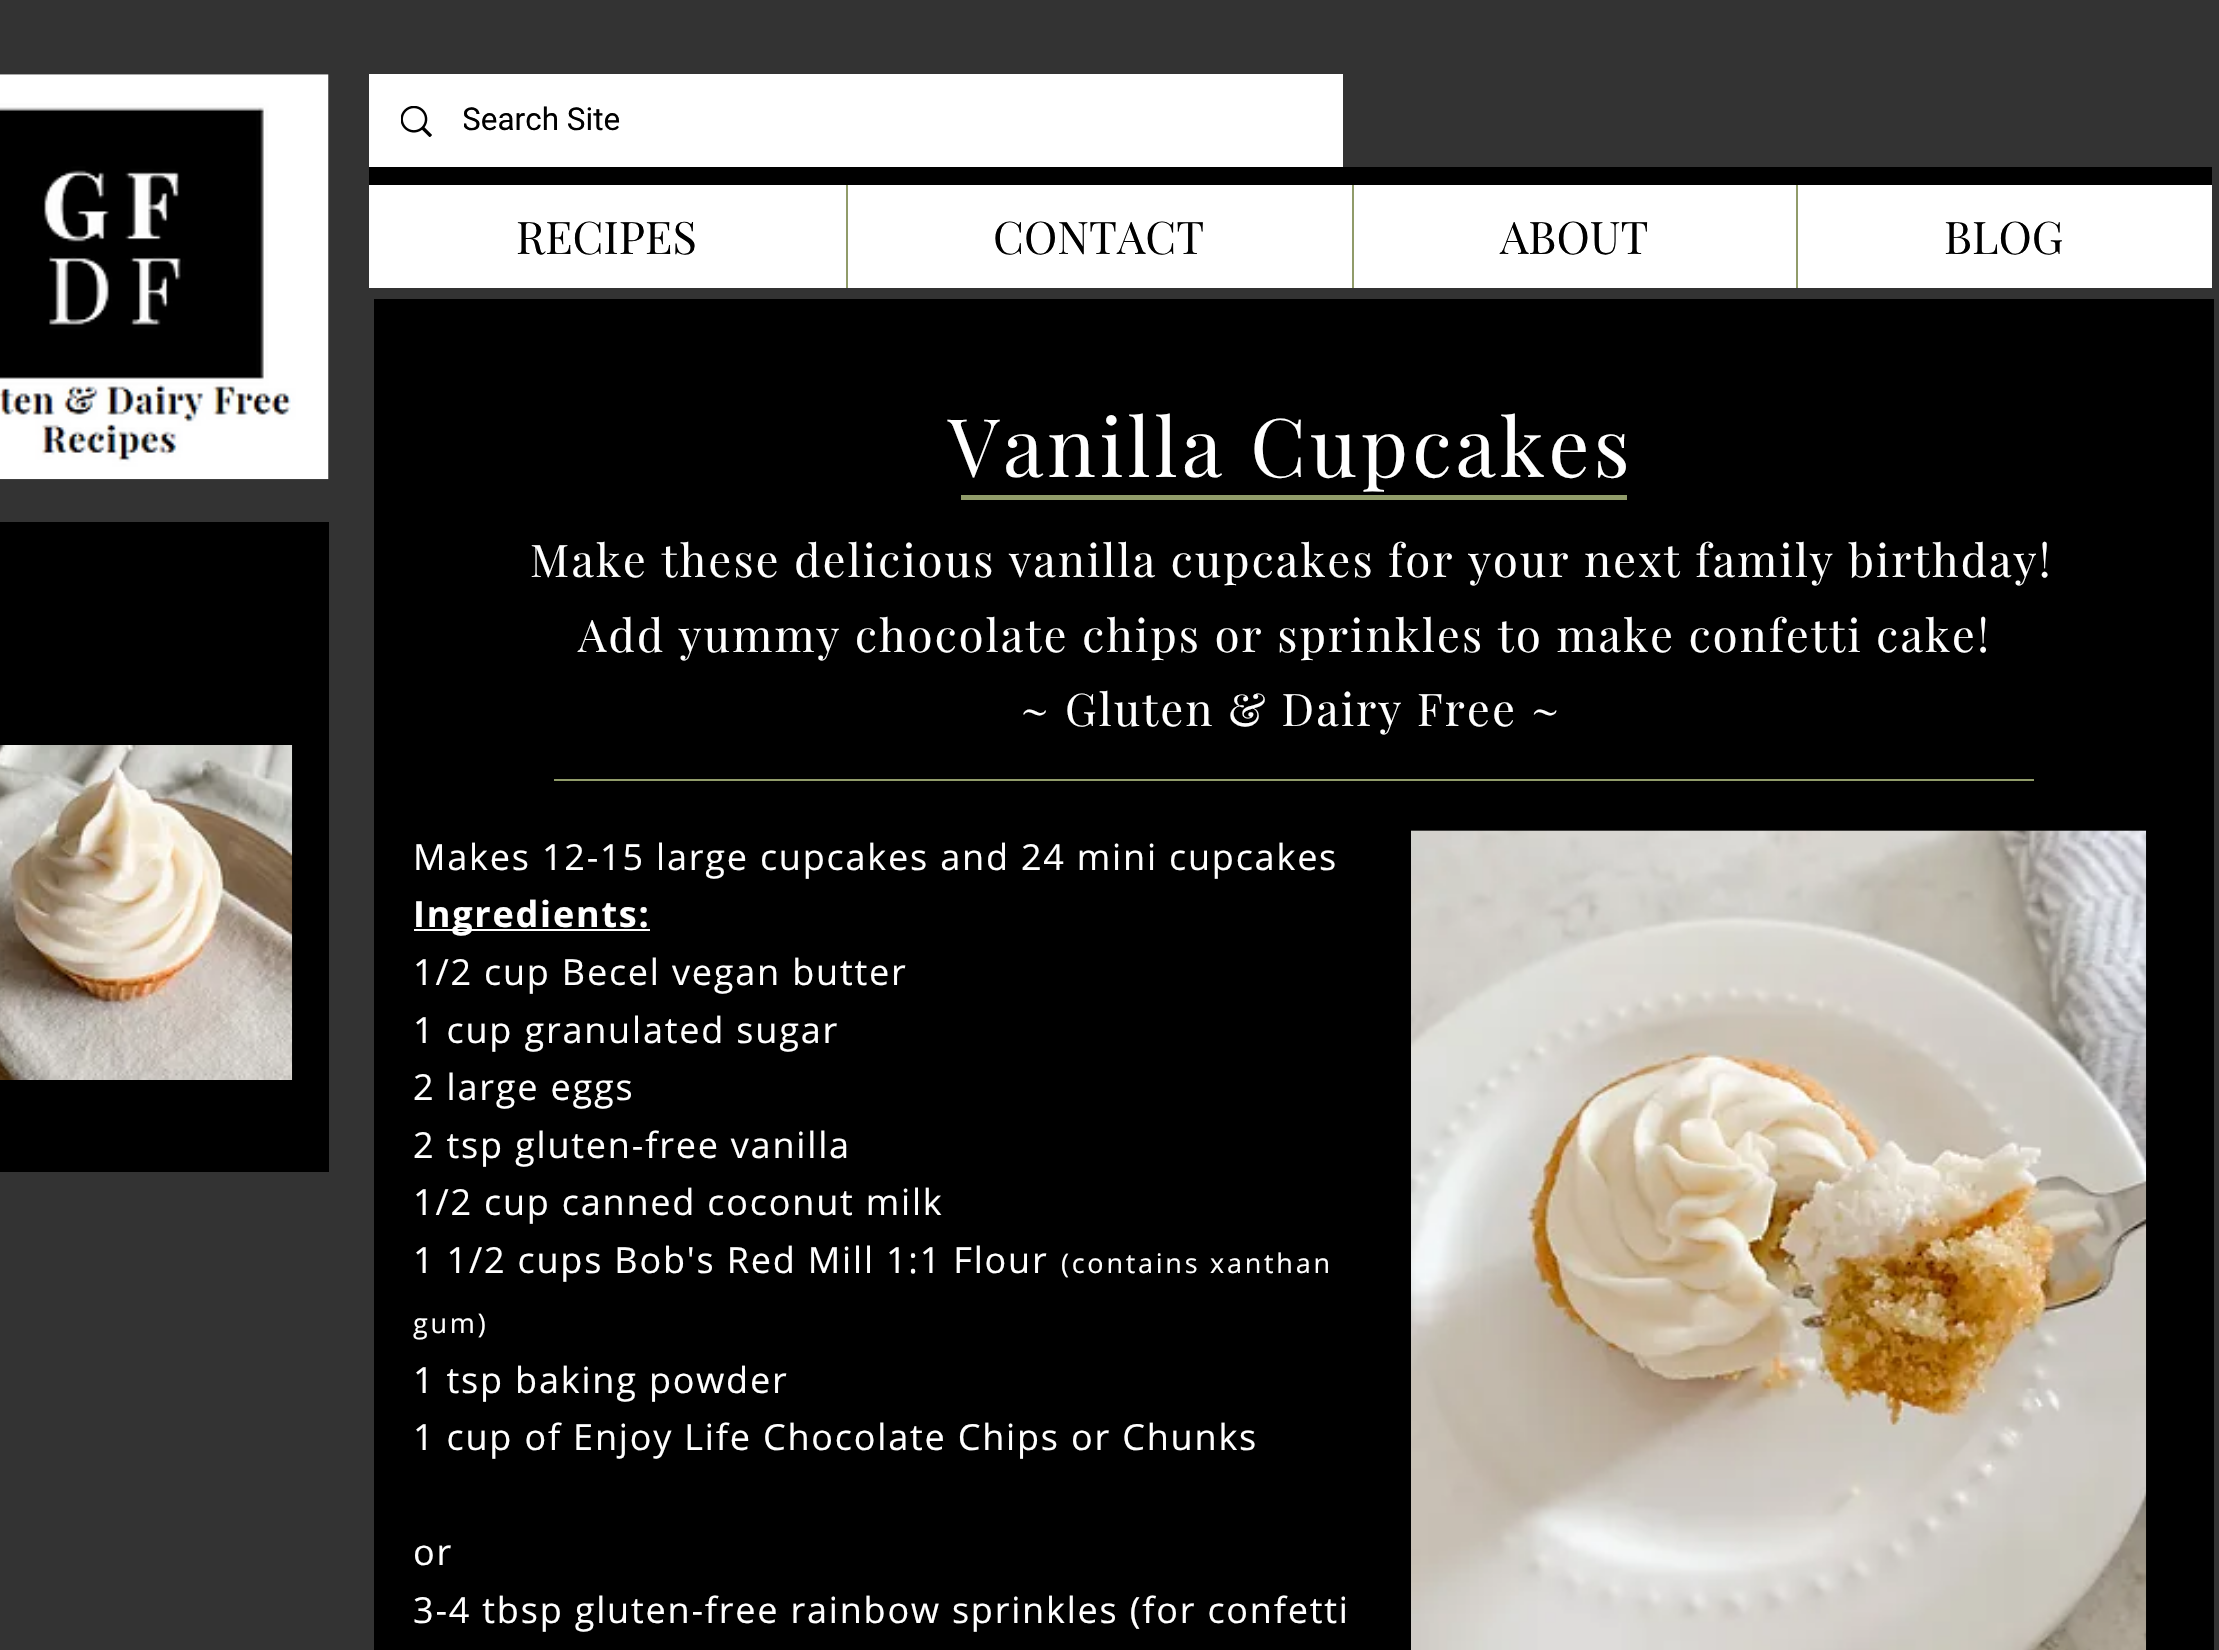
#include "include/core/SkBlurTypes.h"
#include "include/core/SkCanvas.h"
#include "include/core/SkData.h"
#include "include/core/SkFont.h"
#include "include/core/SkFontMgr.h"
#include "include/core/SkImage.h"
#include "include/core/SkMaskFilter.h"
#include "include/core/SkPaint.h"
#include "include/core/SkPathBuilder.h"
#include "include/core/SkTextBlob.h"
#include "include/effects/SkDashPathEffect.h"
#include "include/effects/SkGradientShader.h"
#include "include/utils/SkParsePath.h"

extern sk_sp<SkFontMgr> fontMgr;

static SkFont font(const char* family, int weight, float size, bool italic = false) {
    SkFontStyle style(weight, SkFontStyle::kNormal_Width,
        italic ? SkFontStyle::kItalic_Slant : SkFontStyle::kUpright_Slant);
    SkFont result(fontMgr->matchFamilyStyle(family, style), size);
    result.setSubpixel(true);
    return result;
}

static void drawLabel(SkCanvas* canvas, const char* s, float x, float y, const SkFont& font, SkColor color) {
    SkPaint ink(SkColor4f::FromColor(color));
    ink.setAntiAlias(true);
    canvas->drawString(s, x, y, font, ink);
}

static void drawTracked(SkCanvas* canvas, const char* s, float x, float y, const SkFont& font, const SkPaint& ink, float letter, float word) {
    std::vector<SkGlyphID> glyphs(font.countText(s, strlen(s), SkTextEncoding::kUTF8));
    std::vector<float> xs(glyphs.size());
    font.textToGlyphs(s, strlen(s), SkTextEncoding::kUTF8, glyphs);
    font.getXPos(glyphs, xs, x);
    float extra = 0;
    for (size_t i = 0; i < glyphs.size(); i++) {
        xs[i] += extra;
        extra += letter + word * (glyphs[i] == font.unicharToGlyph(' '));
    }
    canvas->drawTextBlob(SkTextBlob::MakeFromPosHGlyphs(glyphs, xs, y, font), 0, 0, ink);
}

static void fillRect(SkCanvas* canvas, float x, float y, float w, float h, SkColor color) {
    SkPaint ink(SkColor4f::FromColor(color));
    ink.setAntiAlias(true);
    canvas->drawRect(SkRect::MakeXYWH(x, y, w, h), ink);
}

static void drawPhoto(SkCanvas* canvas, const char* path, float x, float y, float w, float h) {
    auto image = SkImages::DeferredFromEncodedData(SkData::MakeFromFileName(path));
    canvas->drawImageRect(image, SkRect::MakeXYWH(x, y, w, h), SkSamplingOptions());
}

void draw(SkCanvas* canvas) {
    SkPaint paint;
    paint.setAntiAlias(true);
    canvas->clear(0xFF333333);
    drawPhoto(canvas, "assets/img1.png", 0, 74, 329, 406);
    fillRect(canvas, 369, 74, 974, 93, 0xFFFFFFFF);
    drawPhoto(canvas, "assets/img2.png", 401, 106, 31, 31);
    canvas->save();
    canvas->clipRect(SkRect::MakeXYWH(464, 101, 785, 36));
    SkFont font1 = font("Roboto", 400, 31.5f);
    drawLabel(canvas, "Search Site", 462, 130, font1, 0xFF000000);
    canvas->restore();
    fillRect(canvas, 369, 167, 1843, 18, 0xFF000000);
    fillRect(canvas, 369, 185, 1843, 103, 0xFFFFFFFF);
    SkFont font2 = font("Playfair Display", 400, 45);
    drawLabel(canvas, "RECIPES", 516, 254, font2, 0xFF000000);
    fillRect(canvas, 846, 185, 2, 103, 0xFF919C6A);
    drawLabel(canvas, "CONTACT", 993, 254, font2, 0xFF000000);
    fillRect(canvas, 1352, 185, 2, 103, 0xFF919C6A);
    drawLabel(canvas, "ABOUT", 1500, 254, font2, 0xFF000000);
    fillRect(canvas, 1796, 185, 2, 103, 0xFF919C6A);
    drawLabel(canvas, "BLOG", 1944, 254, font2, 0xFF000000);
    fillRect(canvas, 0, 522, 329, 650, 0xFF000000);
    drawPhoto(canvas, "assets/img3.png", 0, 745, 293, 335);
    fillRect(canvas, 374, 299, 1840, 1351, 0xFF000000);
    SkFont font3 = font("Playfair Display", 400, 81);
    paint.setColor(0xFFFFFFFF);
    drawTracked(canvas, "Vanilla Cupcakes", 948, 477, font3, paint, 4, 0);
    fillRect(canvas, 961, 495, 666, 5, 0xFF919C6A);
    drawTracked(canvas, "Make these delicious vanilla cupcakes for your next family birthday!", 530, 577, font2, paint, 2.25f, 0);
    drawTracked(canvas, "Add yummy chocolate chips or sprinkles to make confetti cake!", 578, 652, font2, paint, 2.25f, 0);
    drawTracked(canvas, "~ Gluten & Dairy Free ~", 1020, 726, font2, paint, 2.25f, 0);
    fillRect(canvas, 554, 779, 1480, 2, 0xFF919C6A);
    SkFont font4 = font("Open Sans", 400, 36);
    drawTracked(canvas, "Makes 12-15 large cupcakes and 24 mini cupcakes", 413, 870, font4, paint, 1.8f, 0);
    fillRect(canvas, 414, 929, 236, 2, 0xFFFFFFFF);
    SkFont font5 = font("Open Sans", 700, 36);
    drawTracked(canvas, "Ingredients:", 413, 927, font5, paint, 1.8f, 0);
    drawTracked(canvas, "1/2 cup Becel vegan butter", 413, 985, font4, paint, 1.8f, 0);
    drawTracked(canvas, "1 cup granulated sugar", 413, 1043, font4, paint, 1.8f, 0);
    drawTracked(canvas, "2 large eggs", 413, 1100, font4, paint, 1.8f, 0);
    drawTracked(canvas, "2 tsp gluten-free vanilla", 413, 1158, font4, paint, 1.8f, 0);
    drawTracked(canvas, "1/2 cup canned coconut milk", 413, 1215, font4, paint, 1.8f, 0);
    drawTracked(canvas, "1 1/2 cups Bob's Red Mill 1:1 Flour", 413, 1273, font4, paint, 1.8f, 0);
    SkFont font6 = font("Open Sans", 400, 27);
    drawTracked(canvas, "(contains xanthan", 1061, 1273, font6, paint, 2.75f, 0);
    drawTracked(canvas, "gum)", 413, 1333, font6, paint, 2.75f, 0);
    drawTracked(canvas, "1 tsp baking powder", 413, 1393, font4, paint, 1.8f, 0);
    drawTracked(canvas, "1 cup of Enjoy Life Chocolate Chips or Chunks", 413, 1450, font4, paint, 1.8f, 0);
    drawTracked(canvas, "or", 413, 1565, font4, paint, 1.8f, 0);
    drawTracked(canvas, "3-4 tbsp gluten-free rainbow sprinkles (for confetti", 413, 1623, font4, paint, 1.8f, 0);
    drawPhoto(canvas, "assets/img4.png", 1411, 830, 736, 820);
}
